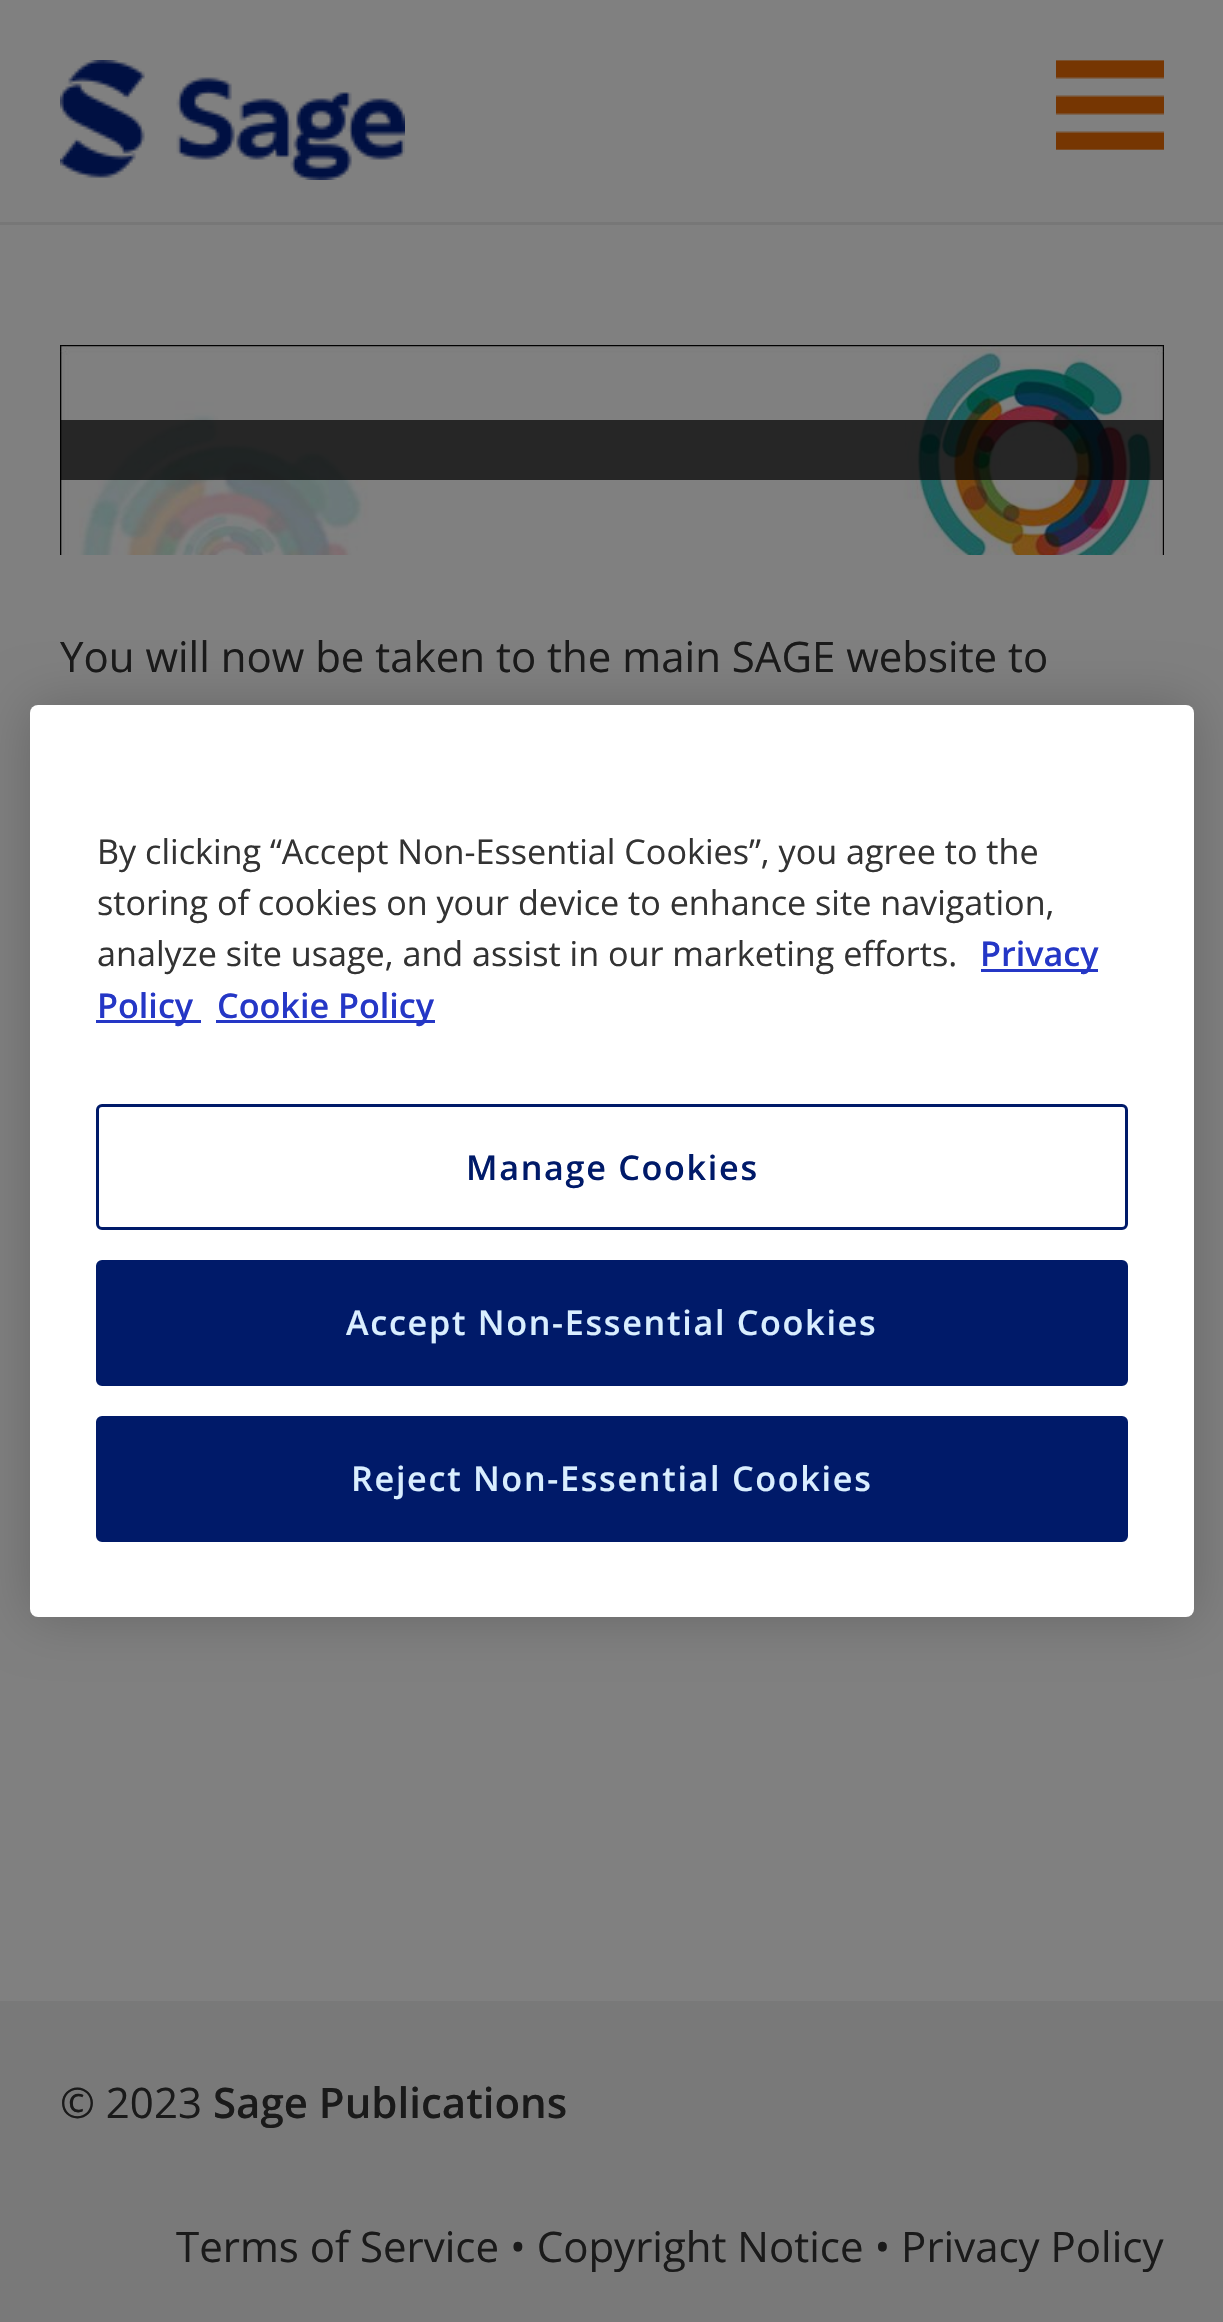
#include "include/core/SkBlurTypes.h"
#include "include/core/SkCanvas.h"
#include "include/core/SkData.h"
#include "include/core/SkFont.h"
#include "include/core/SkFontMgr.h"
#include "include/core/SkImage.h"
#include "include/core/SkMaskFilter.h"
#include "include/core/SkPaint.h"
#include "include/core/SkPathBuilder.h"
#include "include/core/SkTextBlob.h"
#include "include/effects/SkDashPathEffect.h"
#include "include/effects/SkGradientShader.h"
#include "include/utils/SkParsePath.h"

extern sk_sp<SkFontMgr> fontMgr;

static SkFont font(const char* family, int weight, float size, bool italic = false) {
    SkFontStyle style(weight, SkFontStyle::kNormal_Width,
        italic ? SkFontStyle::kItalic_Slant : SkFontStyle::kUpright_Slant);
    SkFont result(fontMgr->matchFamilyStyle(family, style), size);
    result.setSubpixel(true);
    return result;
}

static void drawLabel(SkCanvas* canvas, const char* s, float x, float y, const SkFont& font, SkColor color) {
    SkPaint ink(SkColor4f::FromColor(color));
    ink.setAntiAlias(true);
    canvas->drawString(s, x, y, font, ink);
}

static void drawTracked(SkCanvas* canvas, const char* s, float x, float y, const SkFont& font, const SkPaint& ink, float letter, float word) {
    std::vector<SkGlyphID> glyphs(font.countText(s, strlen(s), SkTextEncoding::kUTF8));
    std::vector<float> xs(glyphs.size());
    font.textToGlyphs(s, strlen(s), SkTextEncoding::kUTF8, glyphs);
    font.getXPos(glyphs, xs, x);
    float extra = 0;
    for (size_t i = 0; i < glyphs.size(); i++) {
        xs[i] += extra;
        extra += letter + word * (glyphs[i] == font.unicharToGlyph(' '));
    }
    canvas->drawTextBlob(SkTextBlob::MakeFromPosHGlyphs(glyphs, xs, y, font), 0, 0, ink);
}

static void fillRect(SkCanvas* canvas, float x, float y, float w, float h, SkColor color) {
    SkPaint ink(SkColor4f::FromColor(color));
    ink.setAntiAlias(true);
    canvas->drawRect(SkRect::MakeXYWH(x, y, w, h), ink);
}

static void fillRRect(SkCanvas* canvas, float x, float y, float w, float h, float radius, SkColor color) {
    SkPaint ink(SkColor4f::FromColor(color));
    ink.setAntiAlias(true);
    canvas->drawRoundRect(SkRect::MakeXYWH(x, y, w, h), radius, radius, ink);
}

static void drawPhoto(SkCanvas* canvas, const char* path, float x, float y, float w, float h) {
    auto image = SkImages::DeferredFromEncodedData(SkData::MakeFromFileName(path));
    canvas->drawImageRect(image, SkRect::MakeXYWH(x, y, w, h), SkSamplingOptions());
}

void draw(SkCanvas* canvas) {
    SkPaint paint;
    paint.setAntiAlias(true);
    canvas->clear(0xFF808080);
    fillRect(canvas, 0, 222, 1223, 3, 0xFF777777);
    drawPhoto(canvas, "assets/img1.png", 60, 60, 345, 120);
    drawPhoto(canvas, "assets/img2.png", 1056, 60, 108, 90);
    drawPhoto(canvas, "assets/img3.png", 60, 345, 1104, 210);
    fillRect(canvas, 61, 420, 1102, 60, 0xB3000000);
    SkFont font1 = font("Open Sans", 400, 42);
    drawLabel(canvas, "You will now be taken to the main SAGE website to", 60, 672, font1, 0xFF1A1A1A);
    paint.setColor(0x33000000);
    paint.setMaskFilter(SkMaskFilter::MakeBlur(kNormal_SkBlurStyle, 27));
    canvas->drawRoundRect(SkRect::MakeXYWH(30, 705, 1164, 912), 8, 8, paint);
    paint.setMaskFilter(nullptr);
    fillRRect(canvas, 30, 705, 1164, 912, 8, 0xFFFFFFFF);
    SkFont font2 = font("Open Sans", 400, 34.15f);
    drawLabel(canvas, "By clicking “Accept Non-Essential Cookies”, you agree to the", 97, 864, font2, 0xFF333333);
    drawLabel(canvas, "storing of cookies on your device to enhance site navigation,", 97, 915, font2, 0xFF333333);
    drawLabel(canvas, "analyze site usage, and assist in our marketing efforts.", 97, 966, font2, 0xFF333333);
    fillRect(canvas, 981, 969, 117, 3, 0xFF2537C6);
    SkFont font3 = font("Open Sans", 600, 34.15f);
    drawLabel(canvas, "Privacy", 980, 966, font3, 0xFF2537C6);
    fillRect(canvas, 96, 1020, 105, 3, 0xFF2537C6);
    drawLabel(canvas, "Policy", 97, 1018, font3, 0xFF2537C6);
    fillRect(canvas, 216, 1020, 219, 3, 0xFF2537C6);
    drawLabel(canvas, "Cookie Policy", 217, 1018, font3, 0xFF2537C6);
    paint.setStroke(true);
    paint.setStrokeWidth(3);
    paint.setColor(0xFF001A69);
    canvas->drawRoundRect(SkRect::MakeXYWH(97.5f, 1105.5f, 1029, 123), 4.5f, 4.5f, paint);
    paint.setStroke(false);
    drawTracked(canvas, "Manage Cookies", 466, 1180, font3, paint, 1.7f, 0);
    canvas->drawRoundRect(SkRect::MakeXYWH(97.5f, 1261.5f, 1029, 123), 4.5f, 4.5f, paint);
    paint.setStroke(true);
    canvas->drawRoundRect(SkRect::MakeXYWH(97.5f, 1261.5f, 1029, 123), 4.5f, 4.5f, paint);
    paint.setStroke(false);
    paint.setColor(0xFFD9EEFF);
    drawTracked(canvas, "Accept Non-Essential Cookies", 346, 1335, font3, paint, 1.7f, 0);
    paint.setColor(0xFF001A69);
    canvas->drawRoundRect(SkRect::MakeXYWH(97.5f, 1417.5f, 1029, 123), 4.5f, 4.5f, paint);
    paint.setStroke(true);
    canvas->drawRoundRect(SkRect::MakeXYWH(97.5f, 1417.5f, 1029, 123), 4.5f, 4.5f, paint);
    paint.setStroke(false);
    paint.setColor(0xFFD9EEFF);
    drawTracked(canvas, "Reject Non-Essential Cookies", 351, 1491, font3, paint, 1.7f, 0);
    fillRect(canvas, 0, 2001, 1223, 321, 0xFF797979);
    drawLabel(canvas, "© 2023", 60, 2118, font1, 0xFF1A1A1A);
    SkFont font4 = font("Open Sans", 600, 42);
    drawLabel(canvas, "Sage Publications", 213, 2118, font4, 0xFF1A1A1A);
    drawLabel(canvas, "Terms of Service • Copyright Notice • Privacy Policy", 176, 2262, font1, 0xFF1A1A1A);
}
